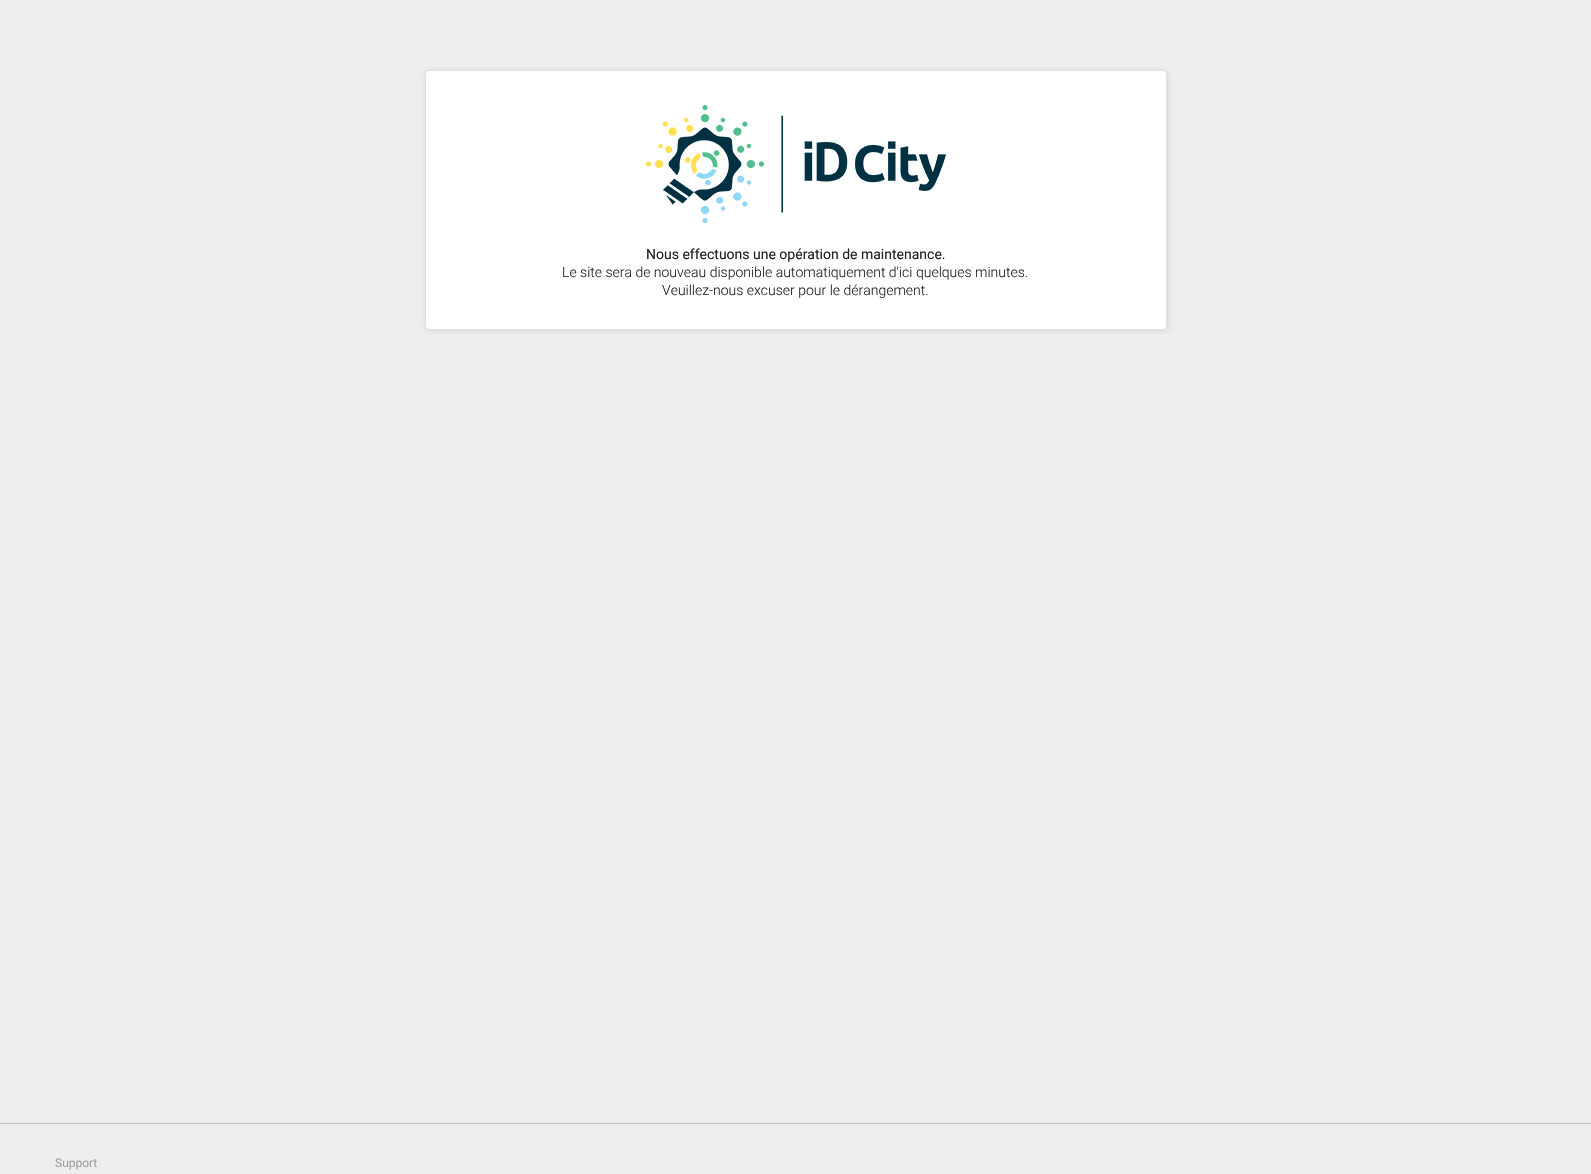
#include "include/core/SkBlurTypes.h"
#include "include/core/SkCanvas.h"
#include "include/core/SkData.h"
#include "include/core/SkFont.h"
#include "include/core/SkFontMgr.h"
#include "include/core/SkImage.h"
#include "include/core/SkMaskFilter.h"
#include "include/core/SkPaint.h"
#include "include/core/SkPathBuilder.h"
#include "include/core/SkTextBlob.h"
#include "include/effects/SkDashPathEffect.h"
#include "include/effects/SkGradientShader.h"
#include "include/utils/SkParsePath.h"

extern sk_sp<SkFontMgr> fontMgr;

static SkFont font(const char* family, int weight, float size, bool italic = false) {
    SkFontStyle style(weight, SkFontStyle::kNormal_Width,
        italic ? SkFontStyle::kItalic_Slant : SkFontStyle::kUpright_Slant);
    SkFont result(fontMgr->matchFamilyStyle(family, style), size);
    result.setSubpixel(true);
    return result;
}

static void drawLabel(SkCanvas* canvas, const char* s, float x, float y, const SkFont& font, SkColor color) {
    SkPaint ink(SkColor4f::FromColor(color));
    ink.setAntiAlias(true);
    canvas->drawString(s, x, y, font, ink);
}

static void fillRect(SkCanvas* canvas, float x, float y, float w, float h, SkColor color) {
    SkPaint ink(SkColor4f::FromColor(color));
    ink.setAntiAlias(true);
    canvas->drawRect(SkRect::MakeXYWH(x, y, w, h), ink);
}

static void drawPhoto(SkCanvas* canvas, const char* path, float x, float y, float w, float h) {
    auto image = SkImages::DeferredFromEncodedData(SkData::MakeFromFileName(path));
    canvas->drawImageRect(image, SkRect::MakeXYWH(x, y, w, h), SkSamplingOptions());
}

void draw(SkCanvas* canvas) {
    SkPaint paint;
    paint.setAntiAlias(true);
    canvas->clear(0xFFEEEEEE);
    paint.setColor(0x1A000000);
    paint.setMaskFilter(SkMaskFilter::MakeBlur(kNormal_SkBlurStyle, 2.5f));
    canvas->drawRoundRect(SkRect::MakeXYWH(426, 71, 742, 260), 4, 4, paint);
    paint.setMaskFilter(nullptr);
    paint.setColor(0xFFFFFFFF);
    canvas->drawRoundRect(SkRect::MakeXYWH(425.5f, 70.5f, 741, 259), 3.5f, 3.5f, paint);
    paint.setStroke(true);
    paint.setStrokeWidth(1);
    paint.setColor(0xFFE0E0E0);
    canvas->drawRoundRect(SkRect::MakeXYWH(425.5f, 70.5f, 741, 259), 3.5f, 3.5f, paint);
    drawPhoto(canvas, "assets/img1.png", 646, 105, 300, 118);
    SkFont font1 = font("Roboto", 400, 14);
    drawLabel(canvas, "Nous effectuons une opération de maintenance.", 646, 259, font1, 0xFF212121);
    SkFont font2 = font("Roboto", 300, 14);
    drawLabel(canvas, "Le site sera de nouveau disponible automatiquement d'ici quelques minutes.", 562, 277, font2, 0xFF212121);
    drawLabel(canvas, "Veuillez-nous excuser pour le dérangement.", 662, 295, font2, 0xFF212121);
    fillRect(canvas, 0, 1123, 1591, 1, 0xFFBDBDBD);
    SkFont font3 = font("Roboto", 400, 12);
    drawLabel(canvas, "Support", 55, 1167, font3, 0xFF9E9E9E);
}
